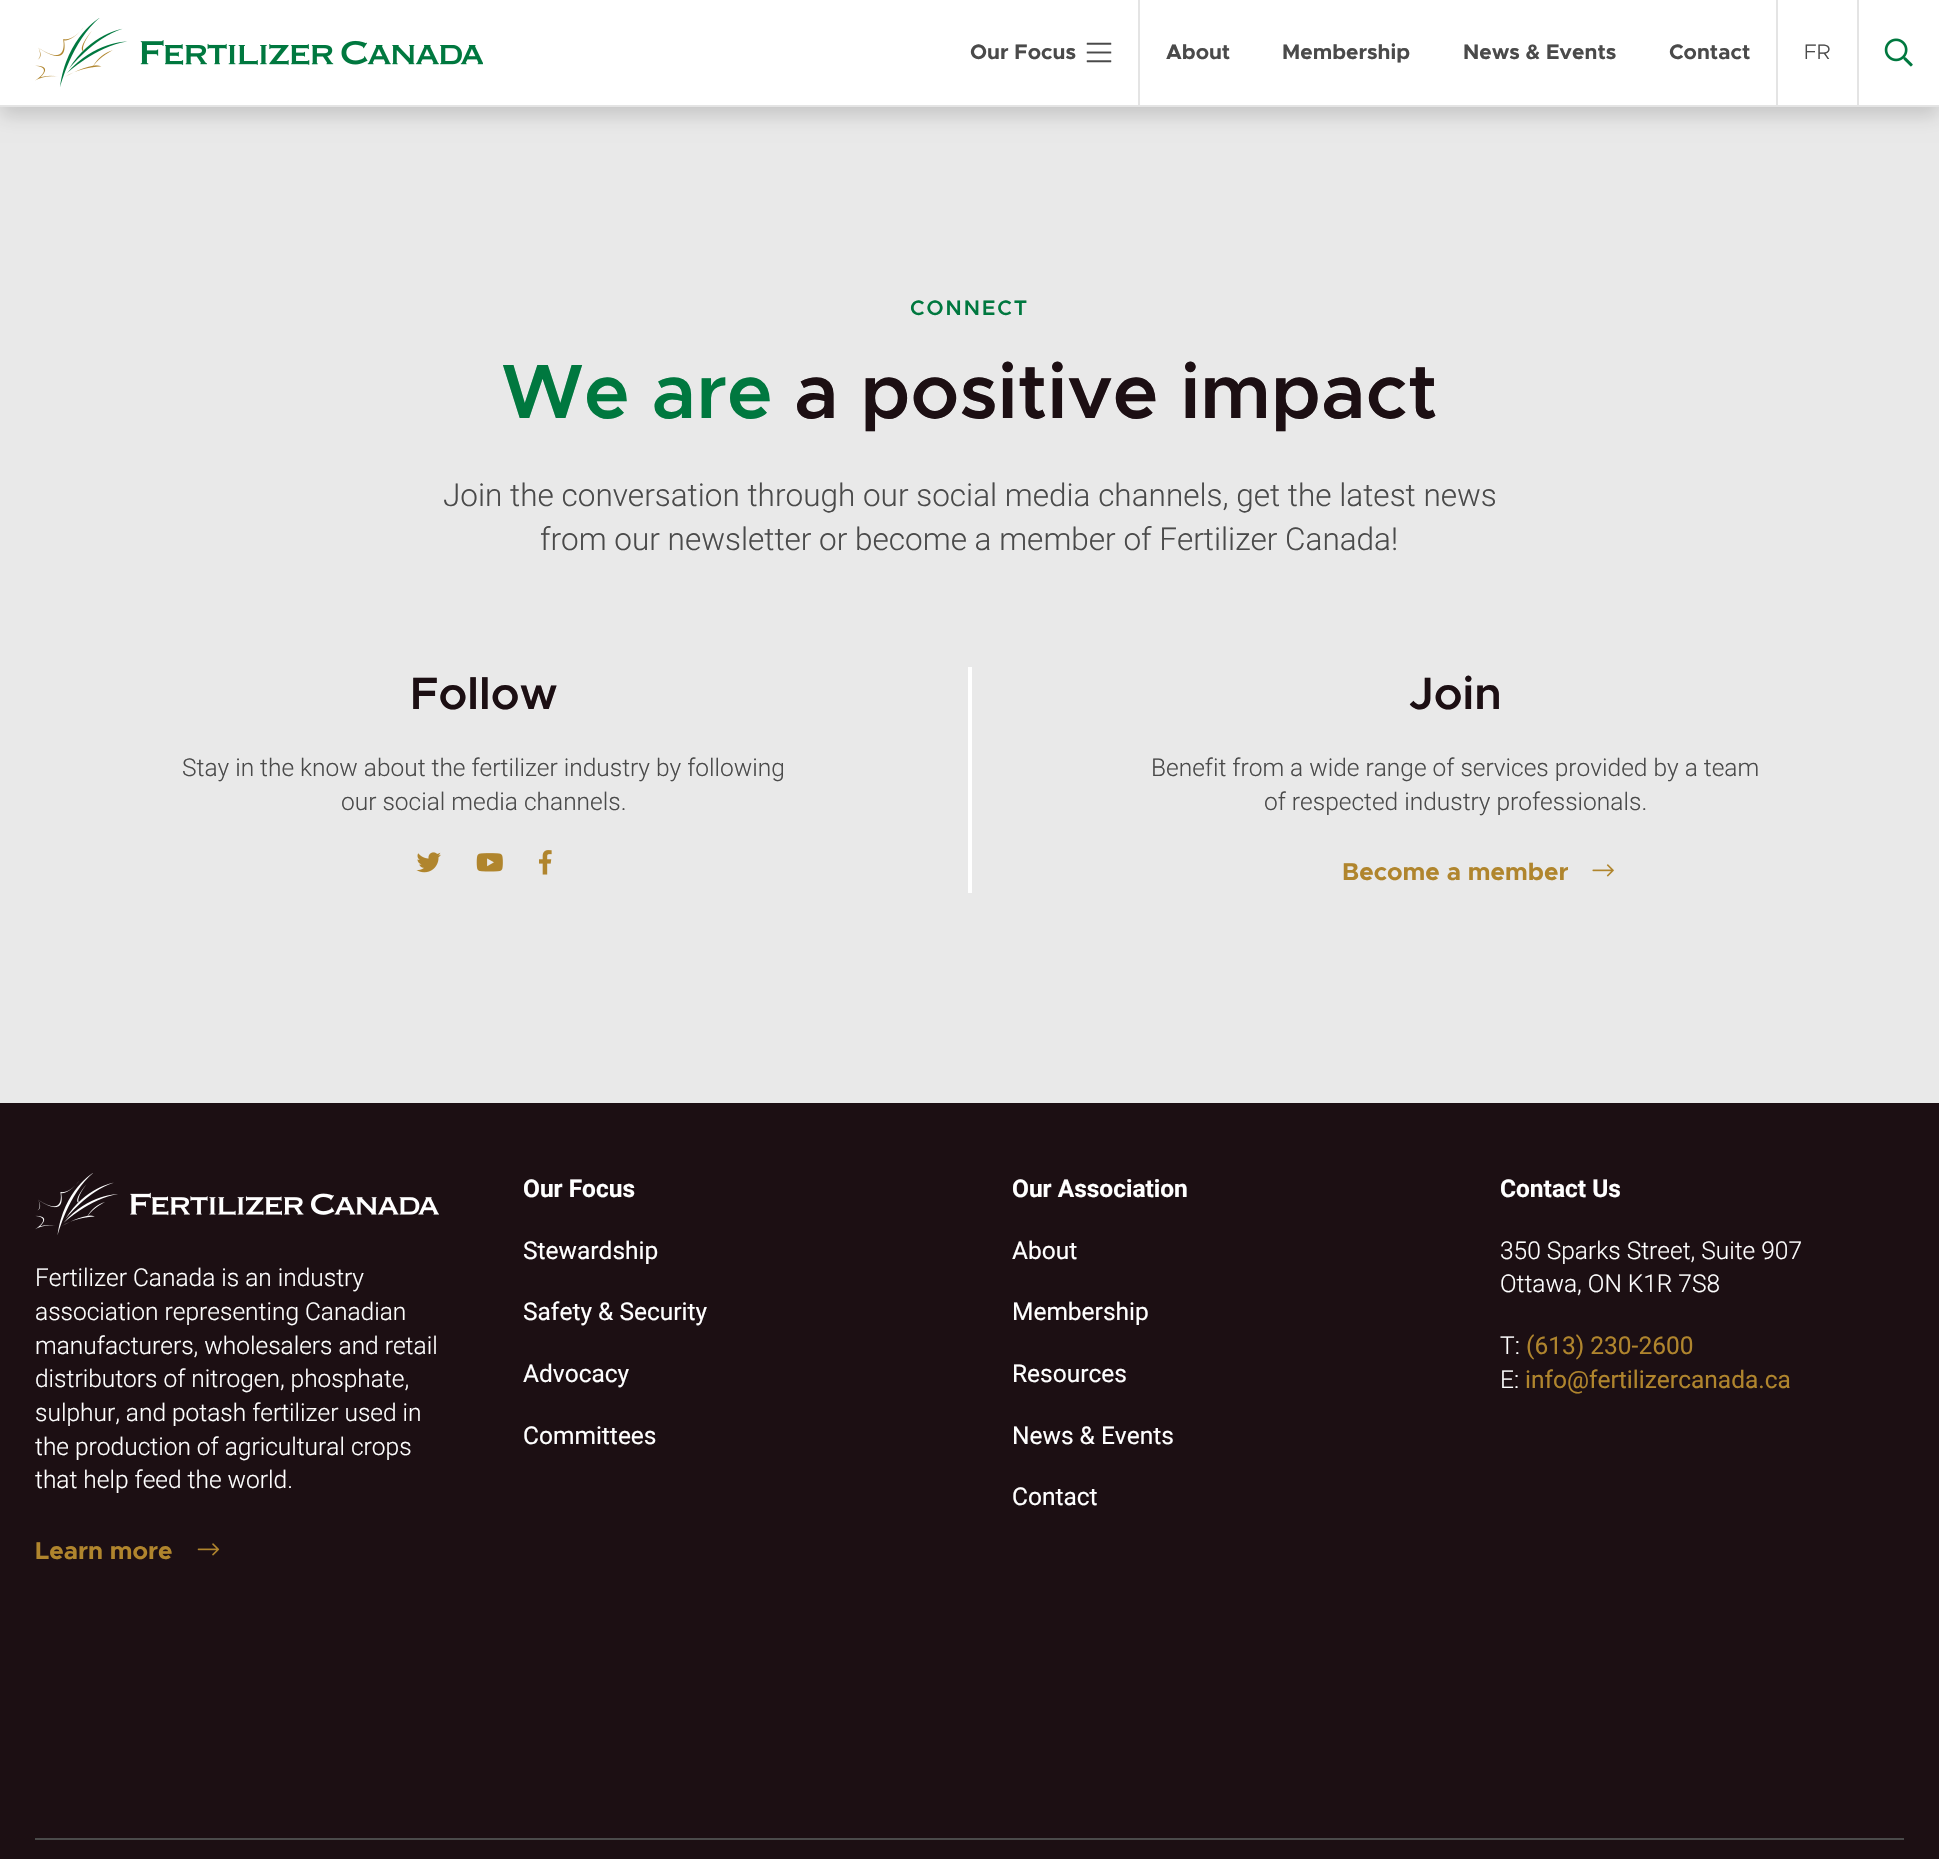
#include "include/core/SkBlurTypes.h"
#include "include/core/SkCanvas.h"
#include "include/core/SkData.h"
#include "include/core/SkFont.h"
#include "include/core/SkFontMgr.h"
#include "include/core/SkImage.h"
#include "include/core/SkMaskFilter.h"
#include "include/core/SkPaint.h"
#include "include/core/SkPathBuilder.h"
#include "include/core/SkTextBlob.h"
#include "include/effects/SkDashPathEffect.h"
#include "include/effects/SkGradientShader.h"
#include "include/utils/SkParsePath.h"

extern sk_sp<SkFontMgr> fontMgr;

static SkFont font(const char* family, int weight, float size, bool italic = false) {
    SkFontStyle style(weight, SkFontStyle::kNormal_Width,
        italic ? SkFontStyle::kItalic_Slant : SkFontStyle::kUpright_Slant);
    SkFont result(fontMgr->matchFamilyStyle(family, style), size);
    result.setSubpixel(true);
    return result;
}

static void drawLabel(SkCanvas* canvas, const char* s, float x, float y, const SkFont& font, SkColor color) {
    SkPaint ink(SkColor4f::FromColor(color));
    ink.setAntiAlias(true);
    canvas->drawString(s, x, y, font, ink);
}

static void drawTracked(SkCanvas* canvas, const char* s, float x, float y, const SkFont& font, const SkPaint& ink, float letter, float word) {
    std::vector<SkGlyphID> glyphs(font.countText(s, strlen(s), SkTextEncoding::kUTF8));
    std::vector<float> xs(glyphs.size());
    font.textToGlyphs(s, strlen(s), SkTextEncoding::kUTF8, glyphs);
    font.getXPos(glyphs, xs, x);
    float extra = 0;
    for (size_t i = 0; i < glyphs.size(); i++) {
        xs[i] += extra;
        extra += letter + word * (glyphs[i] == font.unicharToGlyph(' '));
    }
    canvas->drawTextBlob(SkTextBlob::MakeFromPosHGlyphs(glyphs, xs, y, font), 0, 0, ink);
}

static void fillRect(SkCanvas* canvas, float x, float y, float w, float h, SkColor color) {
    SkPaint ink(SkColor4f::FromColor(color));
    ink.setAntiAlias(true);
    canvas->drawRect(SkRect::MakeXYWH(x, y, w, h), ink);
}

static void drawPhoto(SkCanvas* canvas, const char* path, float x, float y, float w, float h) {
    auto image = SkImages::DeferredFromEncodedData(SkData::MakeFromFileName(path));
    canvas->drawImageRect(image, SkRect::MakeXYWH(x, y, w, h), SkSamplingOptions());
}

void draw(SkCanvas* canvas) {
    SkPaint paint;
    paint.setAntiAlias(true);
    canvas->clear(0xFF1C0F13);
    fillRect(canvas, 0, 107, 1939, 996, 0xFFE9E9E9);
    paint.setColor(0x26000000);
    paint.setMaskFilter(SkMaskFilter::MakeBlur(kNormal_SkBlurStyle, 9));
    canvas->drawRect(SkRect::MakeXYWH(0, 9, 1939, 107), paint);
    paint.setMaskFilter(nullptr);
    fillRect(canvas, 0, 0, 1939, 105, 0xFFFFFFFF);
    fillRect(canvas, 0, 105, 1939, 2, 0xFFE4E4E4);
    drawPhoto(canvas, "assets/img1.png", 35, 18, 448, 69);
    fillRect(canvas, 1138, 0, 2, 105, 0xFFE4E4E4);
    SkFont font1 = font("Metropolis", 700, 21);
    drawLabel(canvas, "Our Focus", 970, 59, font1, 0xFF4A4A4A);
    drawPhoto(canvas, "assets/img2.png", 1086, 42, 26, 21);
    drawLabel(canvas, "About", 1166, 59, font1, 0xFF4A4A4A);
    drawLabel(canvas, "Membership", 1282, 59, font1, 0xFF4A4A4A);
    drawLabel(canvas, "News & Events", 1463, 59, font1, 0xFF4A4A4A);
    drawLabel(canvas, "Contact", 1669, 59, font1, 0xFF4A4A4A);
    fillRect(canvas, 1776, 0, 2, 105, 0xFFE4E4E4);
    SkFont font2 = font("Metropolis", 300, 21);
    drawLabel(canvas, "FR", 1804, 59, font2, 0xFF4A4A4A);
    fillRect(canvas, 1857, 0, 2, 105, 0xFFE4E4E4);
    drawPhoto(canvas, "assets/img3.png", 1884, 38, 29, 29);
    SkFont font3 = font("Metropolis", 600, 21);
    paint.setColor(0xFF00783F);
    drawTracked(canvas, "CONNECT", 910, 315, font3, paint, 2, 0);
    SkFont font4 = font("Metropolis", 600, 77);
    drawLabel(canvas, "We are", 501, 418, font4, 0xFF00783F);
    drawLabel(canvas, "a positive impact", 794, 418, font4, 0xFF1C0F13);
    SkFont font5 = font("Roboto", 300, 31.5f);
    drawLabel(canvas, "Join the conversation through our social media channels, get the latest news", 443, 506, font5, 0xFF4A4A4A);
    drawLabel(canvas, "from our newsletter or become a member of Fertilizer Canada!", 540, 550, font5, 0xFF4A4A4A);
    fillRect(canvas, 968, 667, 4, 226, 0xFFFFFFFF);
    SkFont font6 = font("Metropolis", 600, 45.5f);
    drawLabel(canvas, "Follow", 410, 709, font6, 0xFF1C0F13);
    SkFont font7 = font("Roboto", 300, 24.5f);
    drawLabel(canvas, "Stay in the know about the fertilizer industry by following", 182, 776, font7, 0xFF4A4A4A);
    drawLabel(canvas, "our social media channels.", 341, 810, font7, 0xFF4A4A4A);
    drawPhoto(canvas, "assets/img4.png", 416, 852, 25, 21);
    drawPhoto(canvas, "assets/img5.png", 476, 853, 27, 19);
    drawPhoto(canvas, "assets/img6.png", 539, 850, 13, 25);
    drawLabel(canvas, "Join", 1409, 709, font6, 0xFF1C0F13);
    drawLabel(canvas, "Benefit from a wide range of services provided by a team", 1151, 776, font7, 0xFF4A4A4A);
    drawLabel(canvas, "of respected industry professionals.", 1264, 810, font7, 0xFF4A4A4A);
    SkFont font8 = font("Metropolis", 700, 24.5f);
    drawLabel(canvas, "Become a member", 1342, 880, font8, 0xFFB0852D);
    drawPhoto(canvas, "assets/img7.png", 1592, 864, 22, 13);
    drawPhoto(canvas, "assets/img8.png", 35, 1173, 404, 62);
    drawLabel(canvas, "Fertilizer Canada is an industry", 35, 1286, font7, 0xFFFFFFFF);
    drawLabel(canvas, "association representing Canadian", 35, 1320, font7, 0xFFFFFFFF);
    drawLabel(canvas, "manufacturers, wholesalers and retail", 35, 1354, font7, 0xFFFFFFFF);
    drawLabel(canvas, "distributors of nitrogen, phosphate,", 35, 1387, font7, 0xFFFFFFFF);
    drawLabel(canvas, "sulphur, and potash fertilizer used in", 35, 1421, font7, 0xFFFFFFFF);
    drawLabel(canvas, "the production of agricultural crops", 35, 1455, font7, 0xFFFFFFFF);
    drawLabel(canvas, "that help feed the world.", 35, 1488, font7, 0xFFFFFFFF);
    drawLabel(canvas, "Learn more", 35, 1559, font8, 0xFFB0852D);
    drawPhoto(canvas, "assets/img9.png", 197, 1543, 23, 13);
    SkFont font9 = font("Roboto", 700, 24.5f);
    drawLabel(canvas, "Our Focus", 523, 1197, font9, 0xFFFFFFFF);
    SkFont font10 = font("Roboto", 400, 24.5f);
    drawLabel(canvas, "Stewardship", 523, 1259, font10, 0xFFFFFFFF);
    drawLabel(canvas, "Safety & Security", 523, 1320, font10, 0xFFFFFFFF);
    drawLabel(canvas, "Advocacy", 523, 1382, font10, 0xFFFFFFFF);
    drawLabel(canvas, "Committees", 523, 1444, font10, 0xFFFFFFFF);
    drawLabel(canvas, "Our Association", 1012, 1197, font9, 0xFFFFFFFF);
    drawLabel(canvas, "About", 1012, 1259, font10, 0xFFFFFFFF);
    drawLabel(canvas, "Membership", 1012, 1320, font10, 0xFFFFFFFF);
    drawLabel(canvas, "Resources", 1012, 1382, font10, 0xFFFFFFFF);
    drawLabel(canvas, "News & Events", 1012, 1444, font10, 0xFFFFFFFF);
    drawLabel(canvas, "Contact", 1012, 1505, font10, 0xFFFFFFFF);
    drawLabel(canvas, "Contact Us", 1500, 1197, font9, 0xFFFFFFFF);
    drawLabel(canvas, "350 Sparks Street, Suite 907", 1500, 1259, font7, 0xFFFFFFFF);
    drawLabel(canvas, "Ottawa, ON K1R 7S8", 1500, 1292, font7, 0xFFFFFFFF);
    drawLabel(canvas, "T:", 1500, 1354, font7, 0xFFFFFFFF);
    drawLabel(canvas, "(613) 230-2600", 1526, 1354, font10, 0xFFB0852D);
    drawLabel(canvas, "E:", 1500, 1388, font7, 0xFFFFFFFF);
    drawLabel(canvas, "info@fertilizercanada.ca", 1525, 1388, font10, 0xFFB0852D);
    fillRect(canvas, 35, 1838, 1869, 2, 0xFF4A4A4A);
}
